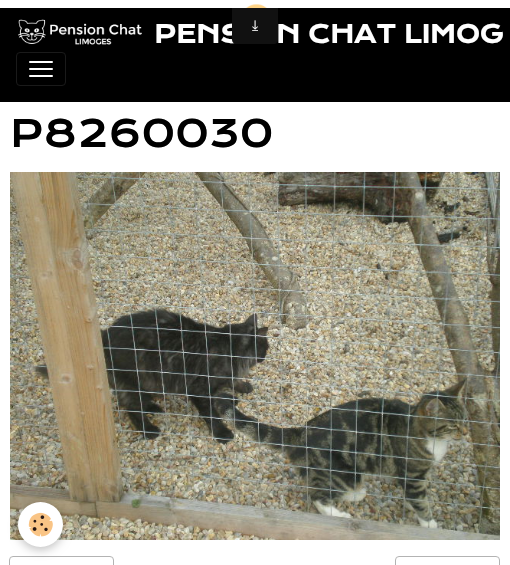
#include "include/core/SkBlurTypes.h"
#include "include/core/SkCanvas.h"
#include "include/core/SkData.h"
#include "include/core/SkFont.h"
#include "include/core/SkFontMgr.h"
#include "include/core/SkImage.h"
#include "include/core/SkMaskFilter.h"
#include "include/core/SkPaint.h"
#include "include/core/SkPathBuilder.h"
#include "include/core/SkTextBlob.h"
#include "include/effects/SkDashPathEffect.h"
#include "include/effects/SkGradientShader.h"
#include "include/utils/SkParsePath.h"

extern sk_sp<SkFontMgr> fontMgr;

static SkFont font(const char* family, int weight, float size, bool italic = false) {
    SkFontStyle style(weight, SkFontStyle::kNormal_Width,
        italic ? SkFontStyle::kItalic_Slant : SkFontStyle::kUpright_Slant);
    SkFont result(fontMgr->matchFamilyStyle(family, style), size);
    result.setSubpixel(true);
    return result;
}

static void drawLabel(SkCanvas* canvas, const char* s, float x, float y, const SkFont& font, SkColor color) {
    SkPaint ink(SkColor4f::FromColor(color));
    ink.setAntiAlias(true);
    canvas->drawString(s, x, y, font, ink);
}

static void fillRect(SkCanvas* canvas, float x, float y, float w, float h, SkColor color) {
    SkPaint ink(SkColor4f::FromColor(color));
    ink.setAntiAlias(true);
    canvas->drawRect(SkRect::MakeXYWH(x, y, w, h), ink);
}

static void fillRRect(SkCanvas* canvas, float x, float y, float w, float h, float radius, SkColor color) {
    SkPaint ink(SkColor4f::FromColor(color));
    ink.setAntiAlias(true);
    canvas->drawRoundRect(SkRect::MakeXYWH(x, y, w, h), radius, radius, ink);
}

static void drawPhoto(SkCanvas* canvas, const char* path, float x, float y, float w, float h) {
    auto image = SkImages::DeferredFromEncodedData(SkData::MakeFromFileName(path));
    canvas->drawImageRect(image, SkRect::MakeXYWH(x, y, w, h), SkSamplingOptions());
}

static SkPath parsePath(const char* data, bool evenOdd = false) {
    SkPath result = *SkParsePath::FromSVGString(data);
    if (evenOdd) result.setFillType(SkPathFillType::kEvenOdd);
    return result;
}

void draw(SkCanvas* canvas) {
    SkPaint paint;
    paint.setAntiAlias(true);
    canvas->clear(0xFFFFFFFF);
    drawPhoto(canvas, "assets/img1.png", 246, 4, 21, 4);
    fillRect(canvas, 0, 8, 510, 94, 0xFF000000);
    SkFont font1 = font("Krona One", 700, 24);
    drawLabel(canvas, "PENS", 154, 43, font1, 0xFFFFFFFF);
    paint.setColor(0xFF111111);
    canvas->drawPath(parsePath("M232 8H278V40C278 42 276 44 274 44H236C234 44 232 42 232 40Z"), paint);
    SkFont font2 = font("FreeSerif", 400, 14);
    drawLabel(canvas, "⤓", 252, 30, font2, 0xFFFFFFFF);
    drawPhoto(canvas, "assets/img2.png", 18, 19, 124, 26);
    drawLabel(canvas, "N CHAT LIMOG", 276, 43, font1, 0xFFFFFFFF);
    paint.setStroke(true);
    paint.setStrokeWidth(1);
    paint.setColor(0xFF1A1A1A);
    canvas->drawRoundRect(SkRect::MakeXYWH(16.5f, 52.5f, 49, 33), 3.5f, 3.5f, paint);
    fillRRect(canvas, 29, 61, 24, 2, 1, 0xFFFFFFFF);
    fillRRect(canvas, 29, 68, 24, 2, 1, 0xFFFFFFFF);
    fillRRect(canvas, 29, 75, 24, 2, 1, 0xFFFFFFFF);
    SkFont font3 = font("Krona One", 400, 36.75f);
    drawLabel(canvas, "P8260030", 10, 147, font3, 0xFF000000);
    drawPhoto(canvas, "assets/img3.png", 10, 172, 490, 368);
    paint.setColor(0xFFB3B3B3);
    canvas->drawRoundRect(SkRect::MakeXYWH(9.5f, 556.5f, 104, 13), 3.5f, 3.5f, paint);
    canvas->drawRoundRect(SkRect::MakeXYWH(395.5f, 556.5f, 104, 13), 3.5f, 3.5f, paint);
    paint.setStroke(false);
    paint.setColor(0x3D000000);
    paint.setMaskFilter(SkMaskFilter::MakeBlur(kNormal_SkBlurStyle, 5));
    canvas->drawRoundRect(SkRect::MakeXYWH(18, 505, 45, 45), 22.5f, 22.5f, paint);
    paint.setMaskFilter(nullptr);
    paint.setColor(0xFFFFFFFF);
    canvas->drawCircle(40.5f, 524.5f, 22.5f, paint);
    drawPhoto(canvas, "assets/img4.png", 28, 512, 25, 25);
}
